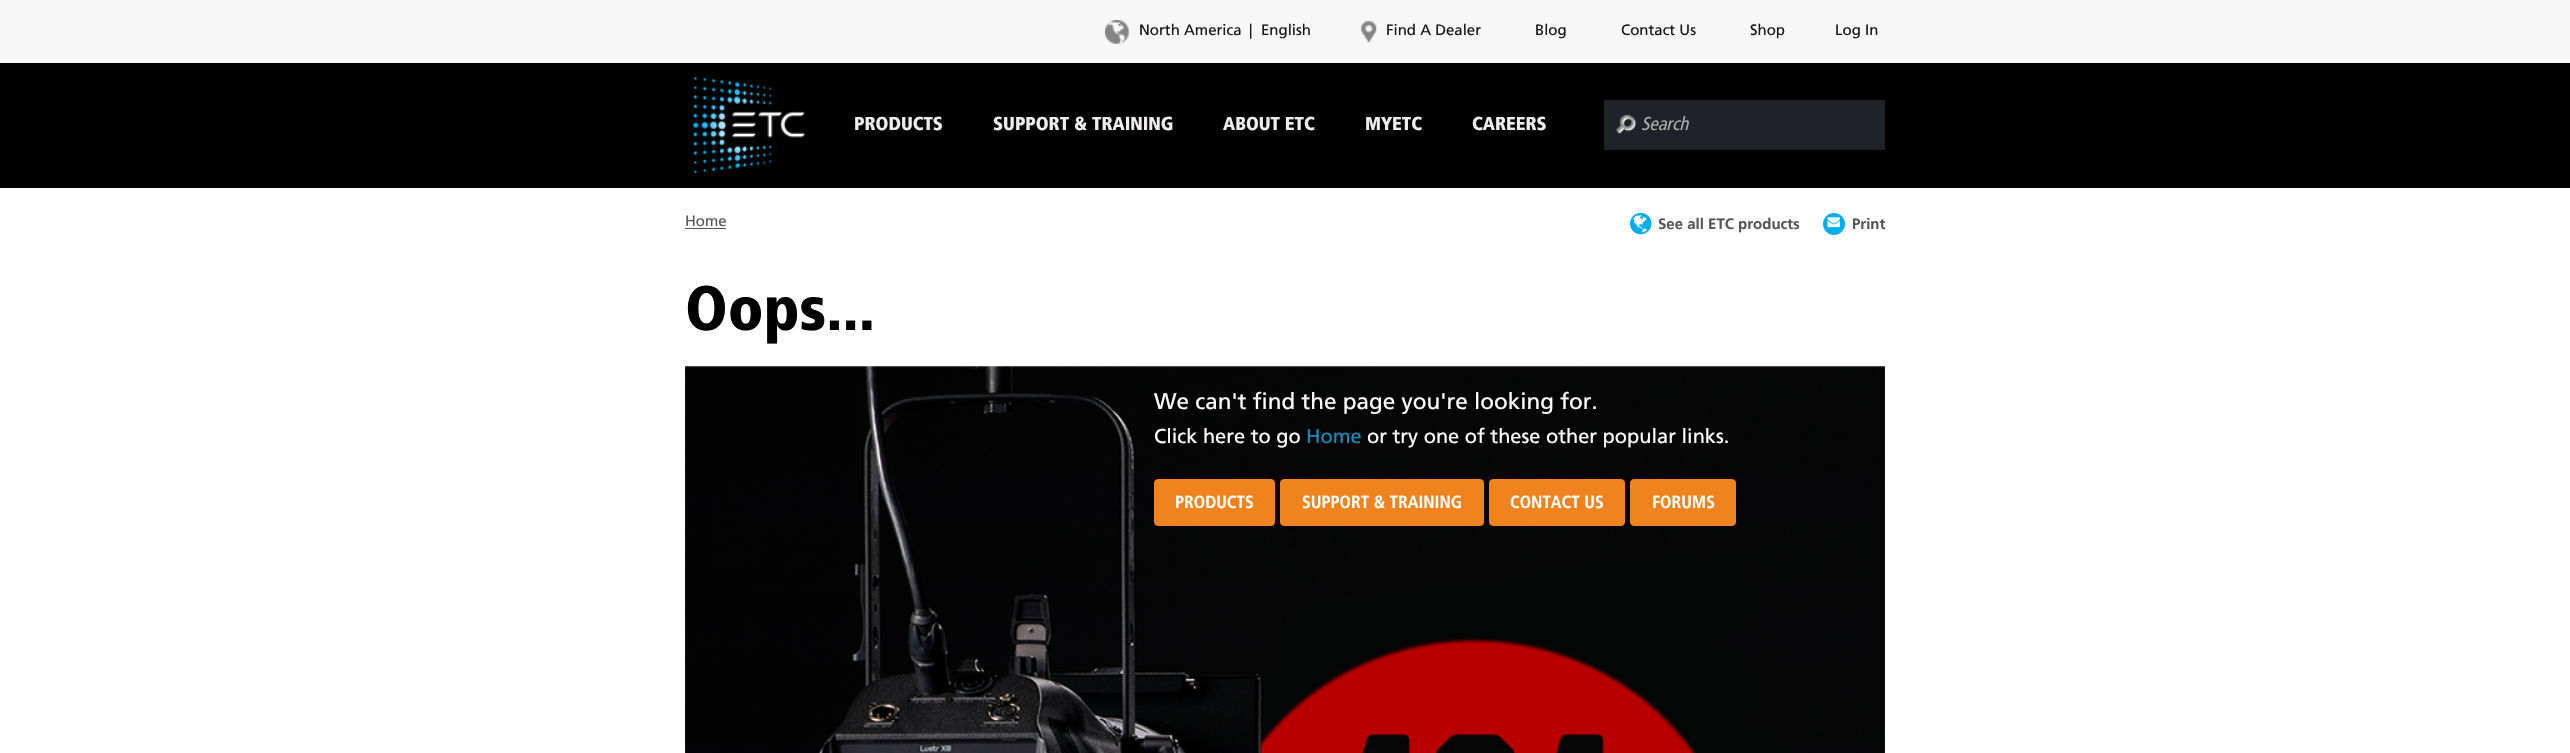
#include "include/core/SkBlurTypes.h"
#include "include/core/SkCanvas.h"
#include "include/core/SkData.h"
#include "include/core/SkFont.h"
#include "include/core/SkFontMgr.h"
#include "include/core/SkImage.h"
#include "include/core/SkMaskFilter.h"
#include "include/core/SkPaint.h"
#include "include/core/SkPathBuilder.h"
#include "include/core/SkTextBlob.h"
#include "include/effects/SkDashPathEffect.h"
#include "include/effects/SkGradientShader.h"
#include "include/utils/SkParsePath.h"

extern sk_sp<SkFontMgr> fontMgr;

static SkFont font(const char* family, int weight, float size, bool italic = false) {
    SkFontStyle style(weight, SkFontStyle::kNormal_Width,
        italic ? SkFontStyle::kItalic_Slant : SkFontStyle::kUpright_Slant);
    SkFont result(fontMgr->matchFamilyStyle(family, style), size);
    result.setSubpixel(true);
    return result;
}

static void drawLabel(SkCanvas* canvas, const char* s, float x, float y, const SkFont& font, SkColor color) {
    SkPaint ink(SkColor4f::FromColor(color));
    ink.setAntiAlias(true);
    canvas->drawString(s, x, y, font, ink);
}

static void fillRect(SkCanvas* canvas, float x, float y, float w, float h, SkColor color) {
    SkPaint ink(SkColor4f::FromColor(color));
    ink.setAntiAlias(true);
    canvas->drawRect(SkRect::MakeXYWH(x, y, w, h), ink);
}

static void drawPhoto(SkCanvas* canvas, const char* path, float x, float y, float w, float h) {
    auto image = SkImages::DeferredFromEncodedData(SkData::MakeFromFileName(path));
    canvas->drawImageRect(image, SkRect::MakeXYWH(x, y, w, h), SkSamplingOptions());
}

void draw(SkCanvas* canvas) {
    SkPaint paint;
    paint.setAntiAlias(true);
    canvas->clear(0xFFFFFFFF);
    fillRect(canvas, 0, 0, 2570, 63, 0xFFF7F7F7);
    drawPhoto(canvas, "assets/img1.png", 1105, 20, 24, 24);
    SkFont font1 = font("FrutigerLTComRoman", 400, 15);
    drawLabel(canvas, "North America", 1139, 35, font1, 0xFF181616);
    drawLabel(canvas, "|", 1249, 35, font1, 0xFF181616);
    drawLabel(canvas, "English", 1261, 35, font1, 0xFF181616);
    drawPhoto(canvas, "assets/img2.png", 1361, 21, 16, 22);
    drawLabel(canvas, "Find A Dealer", 1386, 35, font1, 0xFF181616);
    drawLabel(canvas, "Blog", 1535, 35, font1, 0xFF181616);
    drawLabel(canvas, "Contact Us", 1621, 35, font1, 0xFF181616);
    drawLabel(canvas, "Shop", 1750, 35, font1, 0xFF181616);
    drawLabel(canvas, "Log In", 1835, 35, font1, 0xFF181616);
    fillRect(canvas, 0, 63, 2570, 125, 0xFF000000);
    drawPhoto(canvas, "assets/img3.png", 692, 76, 114, 98);
    SkFont font2 = font("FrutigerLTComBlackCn", 400, 18.75f);
    drawLabel(canvas, "PRODUCTS", 854, 130, font2, 0xFFEFECEC);
    drawLabel(canvas, "SUPPORT & TRAINING", 993, 130, font2, 0xFFEFECEC);
    drawLabel(canvas, "ABOUT ETC", 1223, 130, font2, 0xFFEFECEC);
    drawLabel(canvas, "MYETC", 1365, 130, font2, 0xFFEFECEC);
    drawLabel(canvas, "CAREERS", 1472, 130, font2, 0xFFEFECEC);
    fillRect(canvas, 1604, 100, 281, 50, 0xFF1F2228);
    drawPhoto(canvas, "assets/img4.png", 1616, 115, 21, 19);
    SkFont font3 = font("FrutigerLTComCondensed", 400, 18.75f, true);
    drawLabel(canvas, "Search", 1641, 130, font3, 0xFFACACAC);
    drawLabel(canvas, "Home", 685, 226, font1, 0xFF565656);
    fillRect(canvas, 685, 228, 41, 1, 0xFF565656);
    drawPhoto(canvas, "assets/img5.png", 1630, 212, 22, 23);
    SkFont font4 = font("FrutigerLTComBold", 400, 15);
    drawLabel(canvas, "See all ETC products", 1658, 229, font4, 0xFF565656);
    paint.setColor(0xFF00AEEF);
    canvas->drawCircle(1834, 224, 11, paint);
    drawPhoto(canvas, "assets/img6.png", 1827, 217, 13, 11);
    drawLabel(canvas, "Print", 1852, 229, font4, 0xFF565656);
    SkFont font5 = font("FrutigerLTComBlackCn", 400, 62.5f);
    drawLabel(canvas, "Oops...", 685, 330, font5, 0xFF000000);
    drawPhoto(canvas, "assets/img7.png", 685, 366, 1200, 387);
    SkFont font6 = font("FrutigerLTComRoman", 400, 22.5f);
    drawLabel(canvas, "We can't find the page you're looking for.", 1154, 409, font6, 0xFFFFFFFF);
    SkFont font7 = font("FrutigerLTComRoman", 400, 20);
    drawLabel(canvas, "Click here to go", 1154, 443, font7, 0xFFFFFFFF);
    drawLabel(canvas, "Home", 1306, 443, font7, 0xFF1191C2);
    drawLabel(canvas, "or try one of these other popular links.", 1367, 443, font7, 0xFFFFFFFF);
    paint.setColor(0xFFEF841E);
    canvas->drawRoundRect(SkRect::MakeXYWH(1154.5f, 479.5f, 120, 46), 3.5f, 3.5f, paint);
    paint.setStroke(true);
    paint.setStrokeWidth(1);
    canvas->drawRoundRect(SkRect::MakeXYWH(1154.5f, 479.5f, 120, 46), 3.5f, 3.5f, paint);
    SkFont font8 = font("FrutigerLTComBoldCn", 400, 17.5f);
    drawLabel(canvas, "PRODUCTS", 1175, 508, font8, 0xFFFFFFFF);
    paint.setStroke(false);
    canvas->drawRoundRect(SkRect::MakeXYWH(1280.5f, 479.5f, 203, 46), 3.5f, 3.5f, paint);
    paint.setStroke(true);
    canvas->drawRoundRect(SkRect::MakeXYWH(1280.5f, 479.5f, 203, 46), 3.5f, 3.5f, paint);
    drawLabel(canvas, "SUPPORT & TRAINING", 1302, 508, font8, 0xFFFFFFFF);
    paint.setStroke(false);
    canvas->drawRoundRect(SkRect::MakeXYWH(1489.5f, 479.5f, 135, 46), 3.5f, 3.5f, paint);
    paint.setStroke(true);
    canvas->drawRoundRect(SkRect::MakeXYWH(1489.5f, 479.5f, 135, 46), 3.5f, 3.5f, paint);
    drawLabel(canvas, "CONTACT US", 1510, 508, font8, 0xFFFFFFFF);
    paint.setStroke(false);
    canvas->drawRoundRect(SkRect::MakeXYWH(1630.5f, 479.5f, 105, 46), 3.5f, 3.5f, paint);
    paint.setStroke(true);
    canvas->drawRoundRect(SkRect::MakeXYWH(1630.5f, 479.5f, 105, 46), 3.5f, 3.5f, paint);
    drawLabel(canvas, "FORUMS", 1652, 508, font8, 0xFFFFFFFF);
}
